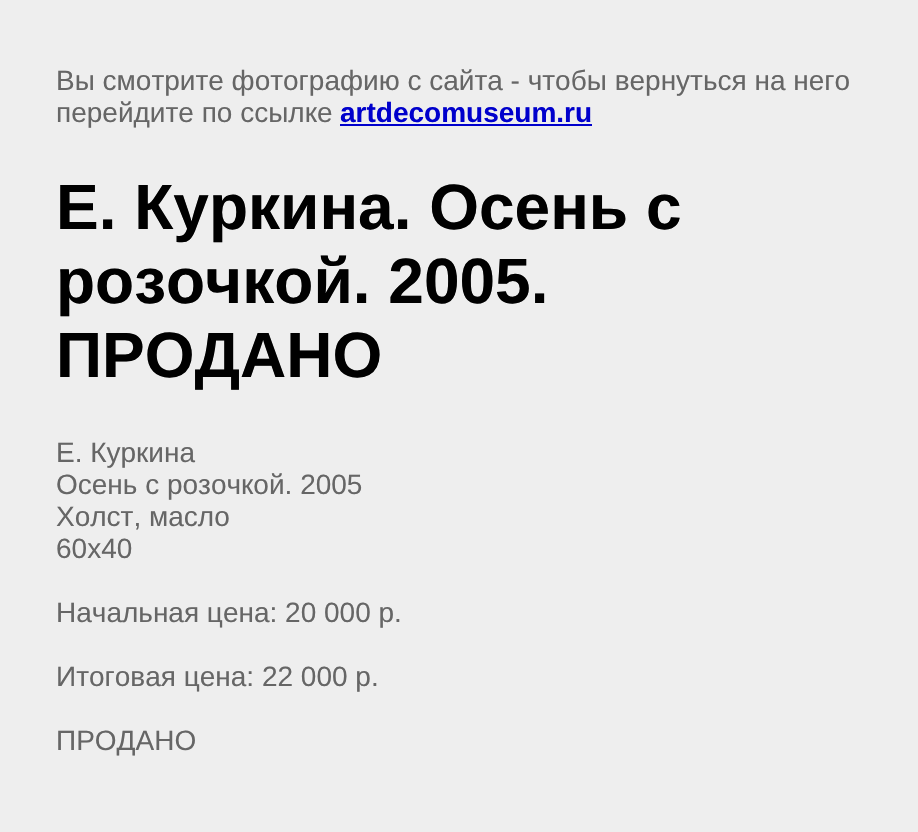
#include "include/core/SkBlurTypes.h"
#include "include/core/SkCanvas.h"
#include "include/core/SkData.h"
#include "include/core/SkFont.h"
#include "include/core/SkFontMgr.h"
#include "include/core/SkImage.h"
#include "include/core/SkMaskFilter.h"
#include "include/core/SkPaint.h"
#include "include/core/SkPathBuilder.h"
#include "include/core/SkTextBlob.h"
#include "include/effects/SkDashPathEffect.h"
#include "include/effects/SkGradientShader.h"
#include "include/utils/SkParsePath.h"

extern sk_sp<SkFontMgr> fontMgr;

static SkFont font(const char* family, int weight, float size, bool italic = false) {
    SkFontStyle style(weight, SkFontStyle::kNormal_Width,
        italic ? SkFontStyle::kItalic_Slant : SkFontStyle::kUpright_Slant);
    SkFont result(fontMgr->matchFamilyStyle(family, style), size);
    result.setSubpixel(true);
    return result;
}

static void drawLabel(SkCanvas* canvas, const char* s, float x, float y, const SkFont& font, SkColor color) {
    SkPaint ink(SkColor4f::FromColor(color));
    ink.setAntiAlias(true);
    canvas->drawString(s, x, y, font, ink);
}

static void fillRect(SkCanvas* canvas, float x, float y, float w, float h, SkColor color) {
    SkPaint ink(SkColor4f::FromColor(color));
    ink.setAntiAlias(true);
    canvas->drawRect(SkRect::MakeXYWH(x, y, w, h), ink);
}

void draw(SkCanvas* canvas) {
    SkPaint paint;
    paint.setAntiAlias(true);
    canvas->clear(0xFFEEEEEE);
    SkFont font1 = font("Liberation Sans", 400, 28);
    drawLabel(canvas, "Вы смотрите фотографию с сайта - чтобы вернуться на него", 56, 90, font1, 0xFF666666);
    drawLabel(canvas, "перейдите по ссылке", 56, 122, font1, 0xFF666666);
    SkFont font2 = font("Liberation Sans", 700, 28);
    drawLabel(canvas, "artdecomuseum.ru", 340, 122, font2, 0xFF0000CC);
    fillRect(canvas, 340, 124, 252, 2, 0xFF0000CC);
    SkFont font3 = font("Liberation Sans", 700, 64);
    drawLabel(canvas, "Е. Куркина. Осень с", 56, 229, font3, 0xFF000000);
    drawLabel(canvas, "розочкой. 2005.", 56, 303, font3, 0xFF000000);
    drawLabel(canvas, "ПРОДАНО", 56, 377, font3, 0xFF000000);
    drawLabel(canvas, "Е. Куркина", 56, 462, font1, 0xFF666666);
    drawLabel(canvas, "Осень с розочкой. 2005", 56, 494, font1, 0xFF666666);
    drawLabel(canvas, "Холст, масло", 56, 526, font1, 0xFF666666);
    drawLabel(canvas, "60x40", 56, 558, font1, 0xFF666666);
    drawLabel(canvas, "Начальная цена: 20 000 р.", 56, 622, font1, 0xFF666666);
    drawLabel(canvas, "Итоговая цена: 22 000 р.", 56, 686, font1, 0xFF666666);
    drawLabel(canvas, "ПРОДАНО", 56, 750, font1, 0xFF666666);
}
